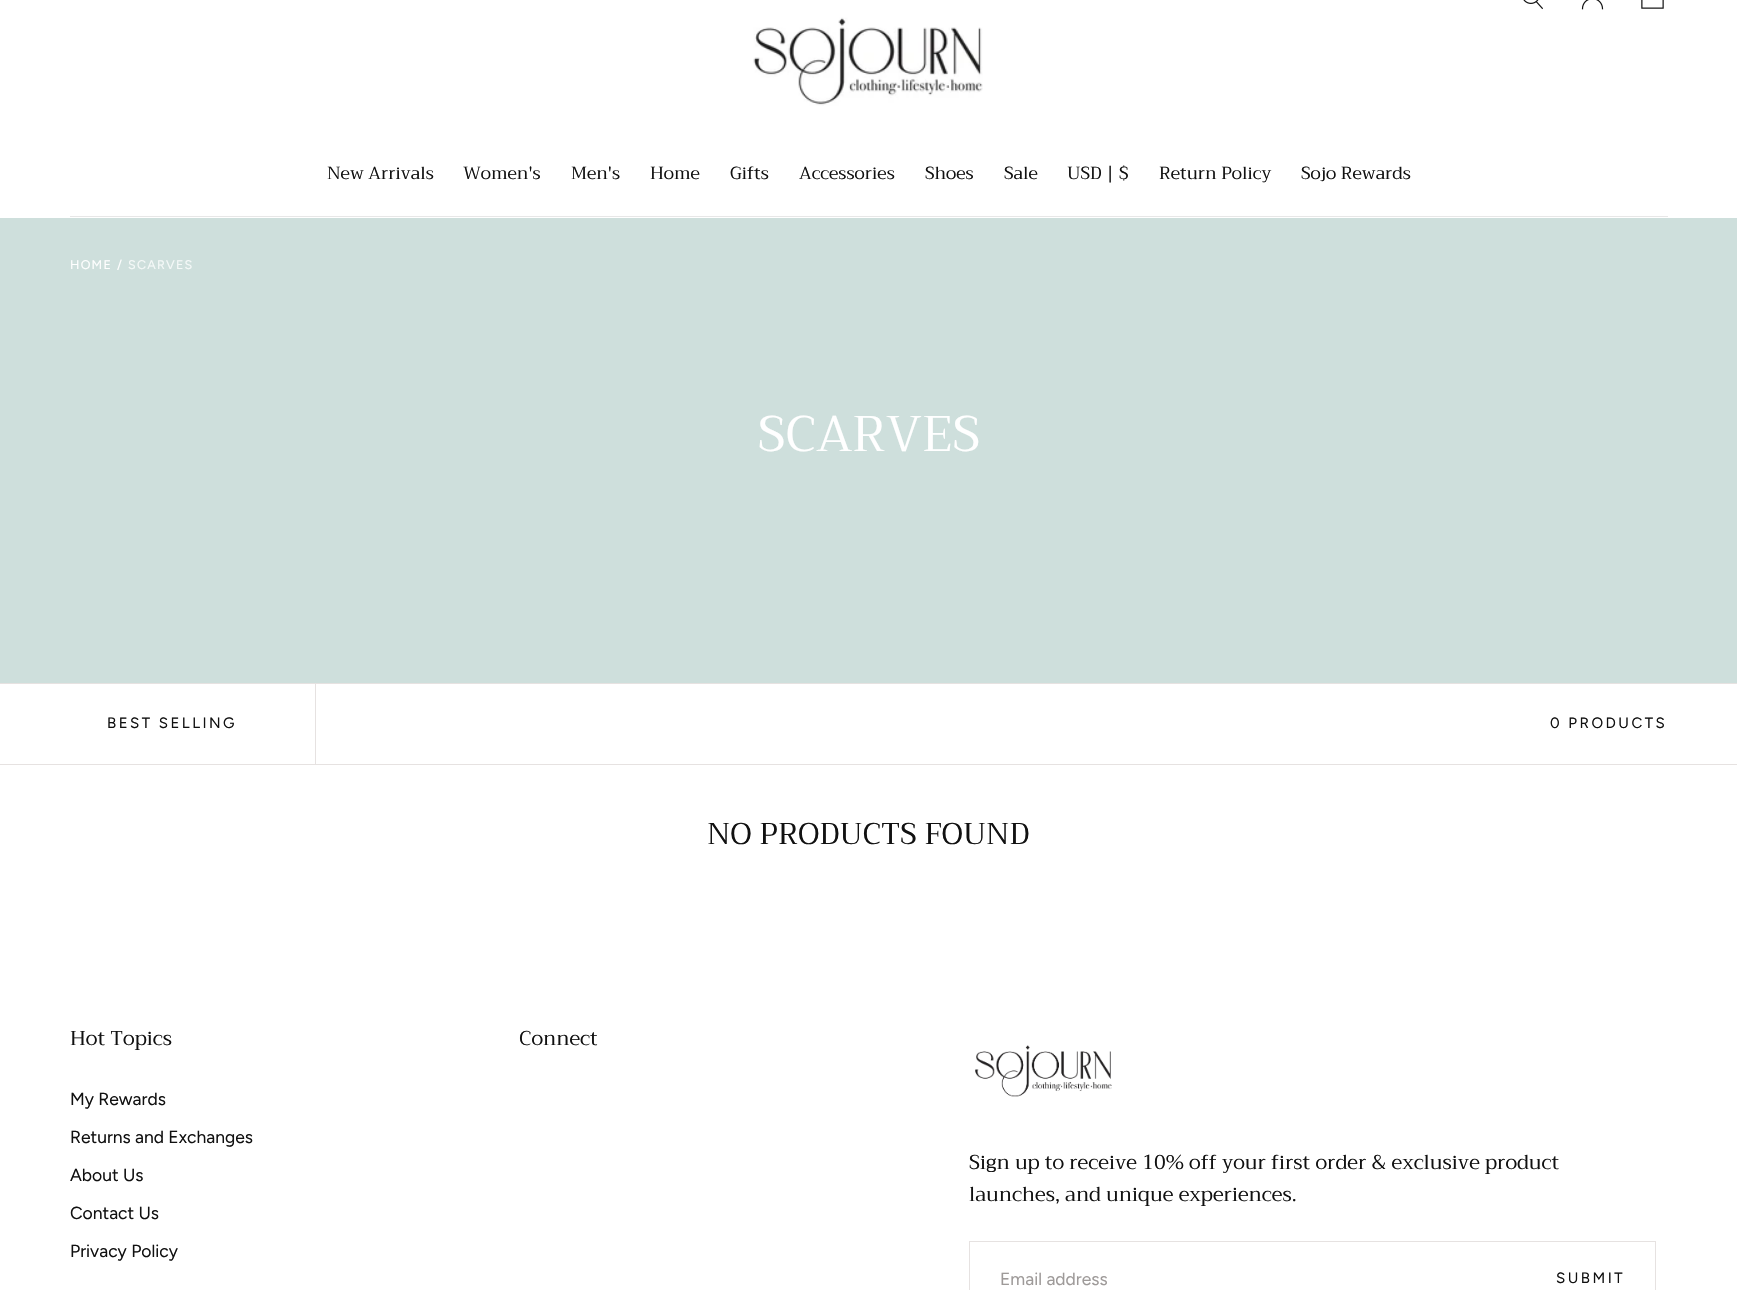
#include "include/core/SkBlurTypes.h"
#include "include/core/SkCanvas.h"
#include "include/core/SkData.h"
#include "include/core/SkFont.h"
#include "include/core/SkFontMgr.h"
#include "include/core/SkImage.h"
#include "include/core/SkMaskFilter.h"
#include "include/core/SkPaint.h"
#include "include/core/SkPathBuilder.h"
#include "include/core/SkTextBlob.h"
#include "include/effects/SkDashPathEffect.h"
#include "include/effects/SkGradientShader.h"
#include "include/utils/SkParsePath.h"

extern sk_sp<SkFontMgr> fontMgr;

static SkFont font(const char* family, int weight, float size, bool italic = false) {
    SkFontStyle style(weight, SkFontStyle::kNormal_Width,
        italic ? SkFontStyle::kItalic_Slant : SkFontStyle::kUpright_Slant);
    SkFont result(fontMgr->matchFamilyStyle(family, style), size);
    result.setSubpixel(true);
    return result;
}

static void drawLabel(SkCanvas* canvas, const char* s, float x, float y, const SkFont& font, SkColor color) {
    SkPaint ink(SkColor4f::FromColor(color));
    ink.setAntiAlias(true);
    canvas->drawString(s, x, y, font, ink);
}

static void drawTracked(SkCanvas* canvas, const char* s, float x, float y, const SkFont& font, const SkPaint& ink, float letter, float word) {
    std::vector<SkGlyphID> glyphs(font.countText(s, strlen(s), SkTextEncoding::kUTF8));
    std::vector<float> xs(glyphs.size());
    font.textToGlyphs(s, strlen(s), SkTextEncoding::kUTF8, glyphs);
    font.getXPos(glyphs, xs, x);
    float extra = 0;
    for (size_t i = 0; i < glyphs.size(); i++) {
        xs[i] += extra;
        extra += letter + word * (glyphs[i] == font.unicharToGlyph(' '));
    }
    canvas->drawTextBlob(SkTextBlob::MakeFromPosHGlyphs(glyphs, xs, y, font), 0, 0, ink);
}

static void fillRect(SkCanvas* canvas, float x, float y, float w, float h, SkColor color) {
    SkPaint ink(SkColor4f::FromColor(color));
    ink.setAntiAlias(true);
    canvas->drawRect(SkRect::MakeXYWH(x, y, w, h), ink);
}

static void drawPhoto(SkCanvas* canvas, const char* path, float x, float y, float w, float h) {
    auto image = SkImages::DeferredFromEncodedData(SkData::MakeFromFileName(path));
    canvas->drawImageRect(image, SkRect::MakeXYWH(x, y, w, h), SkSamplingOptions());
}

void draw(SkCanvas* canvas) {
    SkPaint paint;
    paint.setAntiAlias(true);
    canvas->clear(0xFFFFFFFF);
    drawPhoto(canvas, "assets/img1.png", 1523, 0, 20, 10);
    drawPhoto(canvas, "assets/img2.png", 1581, 0, 23, 10);
    drawPhoto(canvas, "assets/img3.png", 1641, 0, 23, 9);
    drawPhoto(canvas, "assets/img4.png", 753, 17, 230, 89);
    SkFont font1 = font("Trirong", 400, 17.5f);
    drawLabel(canvas, "New Arrivals", 327, 179, font1, 0xFF111111);
    drawLabel(canvas, "Women's", 463, 179, font1, 0xFF111111);
    drawLabel(canvas, "Men's", 571, 179, font1, 0xFF111111);
    drawLabel(canvas, "Home", 650, 179, font1, 0xFF111111);
    drawLabel(canvas, "Gifts", 730, 179, font1, 0xFF111111);
    drawLabel(canvas, "Accessories", 799, 179, font1, 0xFF111111);
    drawLabel(canvas, "Shoes", 925, 179, font1, 0xFF111111);
    drawLabel(canvas, "Sale", 1004, 179, font1, 0xFF111111);
    drawLabel(canvas, "USD | $", 1067, 179, font1, 0xFF111111);
    drawLabel(canvas, "Return Policy", 1159, 179, font1, 0xFF111111);
    drawLabel(canvas, "Sojo Rewards", 1301, 179, font1, 0xFF111111);
    fillRect(canvas, 70, 216, 1598, 1, 0xFFE7E7E7);
    fillRect(canvas, 0, 218, 1737, 465, 0xFFCEDFDC);
    SkFont font2 = font("Figtree", 400, 12.5f);
    paint.setColor(0xFFFFFFFF);
    drawTracked(canvas, "HOME", 70, 269, font2, paint, 1.25f, 0);
    drawTracked(canvas, "/", 117, 269, font2, paint, 1.25f, 0);
    paint.setColor(0xFFF5F9F8);
    drawTracked(canvas, "SCARVES", 128, 269, font2, paint, 1.25f, 0);
    SkFont font3 = font("Trirong", 400, 50);
    drawLabel(canvas, "SCARVES", 758, 451, font3, 0xFFFFFFFF);
    fillRect(canvas, 0, 683, 1737, 1, 0xFFE6E2E1);
    fillRect(canvas, 0, 764, 1737, 1, 0xFFE6E2E1);
    fillRect(canvas, 315, 684, 1, 80, 0xFFE6E2E1);
    SkFont font4 = font("Figtree", 400, 15);
    paint.setColor(0xFF111111);
    drawTracked(canvas, "BEST SELLING", 107, 728, font4, paint, 2.5f, 0);
    drawTracked(canvas, "0 PRODUCTS", 1550, 728, font4, paint, 2.5f, 0);
    SkFont font5 = font("Trirong", 400, 30);
    drawLabel(canvas, "NO PRODUCTS FOUND", 707, 844, font5, 0xFF111111);
    SkFont font6 = font("Trirong", 400, 20);
    drawLabel(canvas, "Hot Topics", 70, 1045, font6, 0xFF111111);
    SkFont font7 = font("Figtree", 400, 17.5f);
    drawLabel(canvas, "My Rewards", 70, 1105, font7, 0xFF111111);
    drawLabel(canvas, "Returns and Exchanges", 70, 1143, font7, 0xFF111111);
    drawLabel(canvas, "About Us", 70, 1181, font7, 0xFF111111);
    drawLabel(canvas, "Contact Us", 70, 1219, font7, 0xFF111111);
    drawLabel(canvas, "Privacy Policy", 70, 1257, font7, 0xFF111111);
    drawLabel(canvas, "Connect", 519, 1045, font6, 0xFF111111);
    drawPhoto(canvas, "assets/img5.png", 975, 1045, 137, 52);
    drawLabel(canvas, "Sign up to receive 10% off your first order & exclusive product", 969, 1169, font6, 0xFF111111);
    drawLabel(canvas, "launches, and unique experiences.", 969, 1201, font6, 0xFF111111);
    paint.setStroke(true);
    paint.setStrokeWidth(1);
    paint.setColor(0xFFE6E2E1);
    canvas->drawRect(SkRect::MakeXYWH(969.5f, 1241.5f, 686, 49), paint);
    drawLabel(canvas, "Email address", 1000, 1285, font7, 0xFF9E9A99);
    paint.setStroke(false);
    paint.setColor(0xFF111111);
    drawTracked(canvas, "SUBMIT", 1556, 1283, font4, paint, 2.5f, 0);
}
